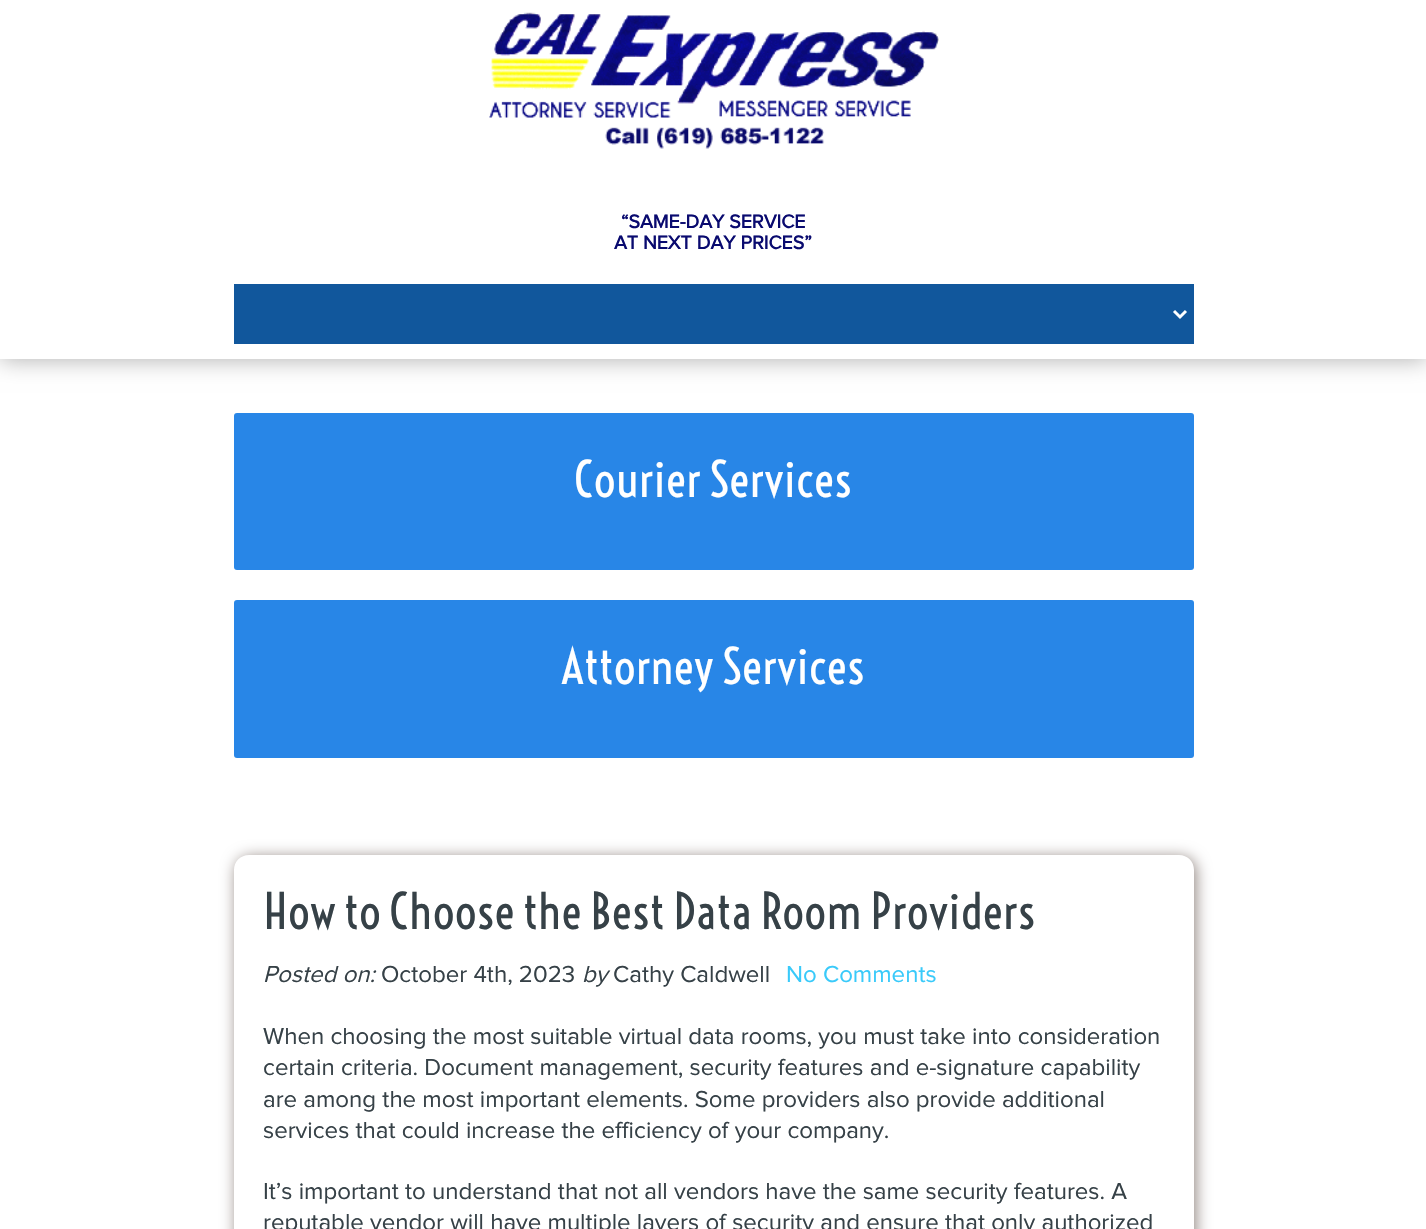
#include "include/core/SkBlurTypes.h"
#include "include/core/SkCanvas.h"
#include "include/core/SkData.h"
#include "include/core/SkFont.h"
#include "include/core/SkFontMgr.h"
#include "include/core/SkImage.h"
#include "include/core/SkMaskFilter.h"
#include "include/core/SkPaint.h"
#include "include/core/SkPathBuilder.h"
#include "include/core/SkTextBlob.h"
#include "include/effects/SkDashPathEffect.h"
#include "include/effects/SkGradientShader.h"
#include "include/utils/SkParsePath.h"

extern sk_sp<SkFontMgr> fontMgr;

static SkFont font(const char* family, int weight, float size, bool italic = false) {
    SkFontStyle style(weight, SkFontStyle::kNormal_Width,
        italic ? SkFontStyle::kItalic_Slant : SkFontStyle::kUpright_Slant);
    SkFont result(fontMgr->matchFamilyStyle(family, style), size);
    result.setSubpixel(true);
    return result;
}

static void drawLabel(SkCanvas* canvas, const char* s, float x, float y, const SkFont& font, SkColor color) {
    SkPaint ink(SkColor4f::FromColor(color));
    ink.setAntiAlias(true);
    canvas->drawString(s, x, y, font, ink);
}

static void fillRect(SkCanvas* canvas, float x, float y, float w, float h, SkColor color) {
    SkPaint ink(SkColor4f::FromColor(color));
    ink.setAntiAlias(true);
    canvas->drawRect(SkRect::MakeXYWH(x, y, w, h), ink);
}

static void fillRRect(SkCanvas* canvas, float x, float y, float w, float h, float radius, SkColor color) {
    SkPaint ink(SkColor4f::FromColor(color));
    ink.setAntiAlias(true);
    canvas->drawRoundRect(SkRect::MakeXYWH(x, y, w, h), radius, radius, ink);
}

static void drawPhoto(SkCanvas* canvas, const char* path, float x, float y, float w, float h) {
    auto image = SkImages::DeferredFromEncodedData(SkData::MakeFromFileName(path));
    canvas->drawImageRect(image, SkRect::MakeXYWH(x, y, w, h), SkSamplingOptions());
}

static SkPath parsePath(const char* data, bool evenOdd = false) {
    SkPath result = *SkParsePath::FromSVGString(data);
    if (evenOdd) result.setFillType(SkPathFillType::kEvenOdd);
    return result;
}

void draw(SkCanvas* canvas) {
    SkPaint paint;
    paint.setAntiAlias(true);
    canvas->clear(0xFFFFFFFF);
    paint.setColor(0x4D000000);
    paint.setMaskFilter(SkMaskFilter::MakeBlur(kNormal_SkBlurStyle, 11));
    canvas->drawRect(SkRect::MakeXYWH(0, 2, 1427, 358), paint);
    paint.setMaskFilter(nullptr);
    fillRect(canvas, 0, 0, 1426, 359, 0xFFFFFFFF);
    drawPhoto(canvas, "assets/img1.png", 489, 12, 450, 137);
    SkFont font1 = font("Proxima Nova", 700, 19.5f);
    drawLabel(canvas, "“SAME-DAY SERVICE", 621, 228, font1, 0xFF090A6F);
    drawLabel(canvas, "AT NEXT DAY PRICES”", 614, 249, font1, 0xFF090A6F);
    fillRect(canvas, 234, 284, 960, 60, 0xFF11579C);
    paint.setStroke(true);
    paint.setStrokeWidth(3);
    paint.setColor(0xFFFFFFFF);
    canvas->drawPath(parsePath("M1174 311L1180 317L1186 311"), paint);
    fillRRect(canvas, 234, 413, 960, 157, 3, 0xFF2886E7);
    SkFont font2 = font("Voltaire", 400, 48);
    drawLabel(canvas, "Courier Services", 574, 497, font2, 0xFFFFFFFF);
    fillRRect(canvas, 234, 600, 960, 158, 3, 0xFF2886E7);
    drawLabel(canvas, "Attorney Services", 561, 684, font2, 0xFFFFFFFF);
    canvas->save();
    canvas->clipPath(parsePath("M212 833H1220V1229H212ZM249 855H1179C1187.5 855 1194 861.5 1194 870V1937C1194 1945.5 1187.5 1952 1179 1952H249C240.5 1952 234 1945.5 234 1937V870C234 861.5 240.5 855 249 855Z", true), true);
    paint.setStroke(false);
    paint.setColor(0xFF90857F);
    paint.setMaskFilter(SkMaskFilter::MakeBlur(kNormal_SkBlurStyle, 7.5f));
    canvas->drawRoundRect(SkRect::MakeXYWH(236, 857, 960, 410), 15, 15, paint);
    paint.setMaskFilter(nullptr);
    canvas->restore();
    drawLabel(canvas, "How to Choose the Best Data Room Providers", 263, 929, font2, 0xFF364147);
    SkFont font3 = font("Proxima Nova", 400, 24, true);
    drawLabel(canvas, "Posted on:", 263, 982, font3, 0xFF364147);
    SkFont font4 = font("Proxima Nova", 400, 24);
    drawLabel(canvas, "October 4th, 2023", 381, 982, font4, 0xFF364147);
    drawLabel(canvas, "by", 582, 982, font3, 0xFF364147);
    drawLabel(canvas, "Cathy Caldwell", 613, 982, font4, 0xFF364147);
    drawLabel(canvas, "No Comments", 786, 982, font4, 0xFF39CAFA);
    drawLabel(canvas, "When choosing the most suitable virtual data rooms, you must take into consideration", 263, 1044, font4, 0xFF364147);
    drawLabel(canvas, "certain criteria. Document management, security features and e-signature capability", 263, 1075, font4, 0xFF364147);
    drawLabel(canvas, "are among the most important elements. Some providers also provide additional", 263, 1107, font4, 0xFF364147);
    drawLabel(canvas, "services that could increase the efficiency of your company.", 263, 1138, font4, 0xFF364147);
    drawLabel(canvas, "It’s important to understand that not all vendors have the same security features. A", 263, 1199, font4, 0xFF364147);
    drawLabel(canvas, "reputable vendor will have multiple layers of security and ensure that only authorized", 263, 1230, font4, 0xFF364147);
}
